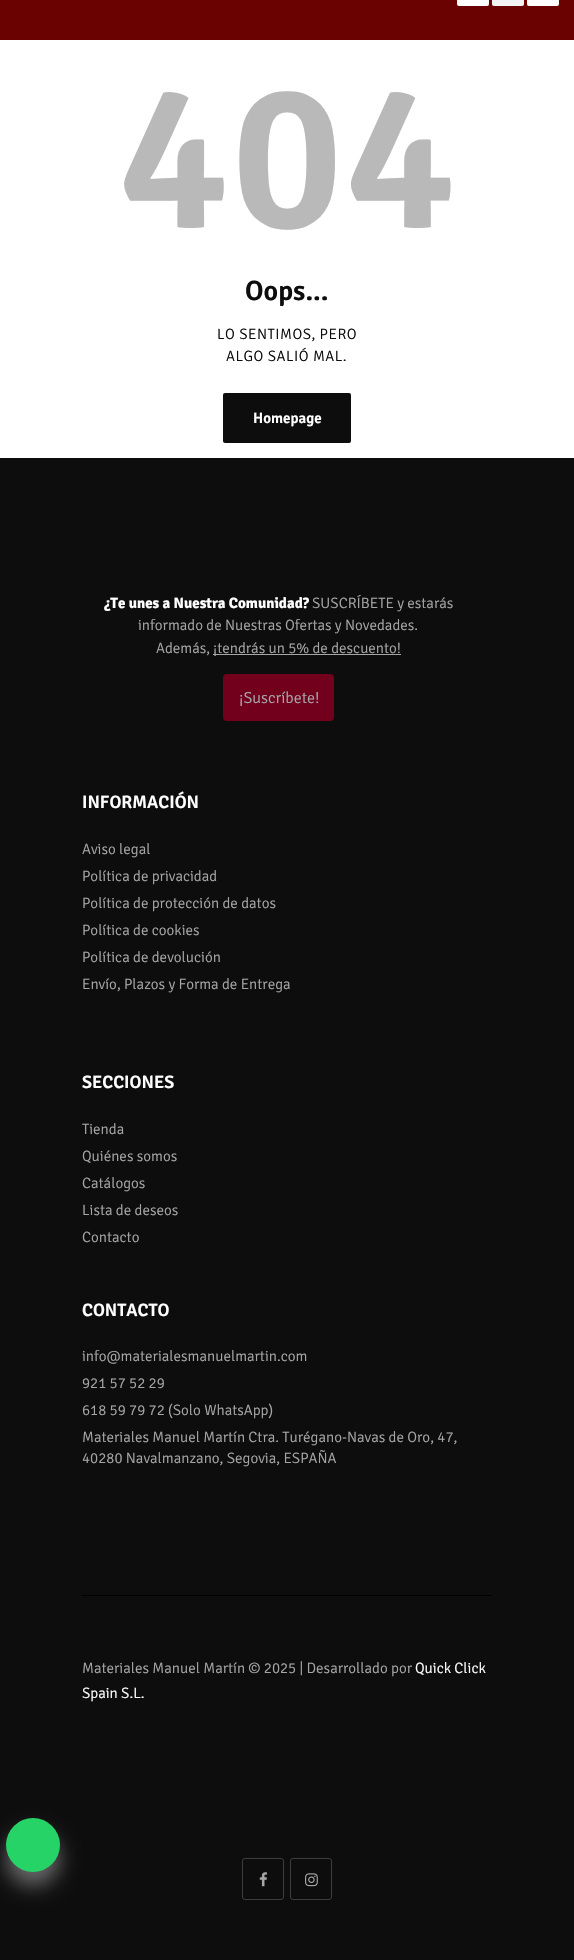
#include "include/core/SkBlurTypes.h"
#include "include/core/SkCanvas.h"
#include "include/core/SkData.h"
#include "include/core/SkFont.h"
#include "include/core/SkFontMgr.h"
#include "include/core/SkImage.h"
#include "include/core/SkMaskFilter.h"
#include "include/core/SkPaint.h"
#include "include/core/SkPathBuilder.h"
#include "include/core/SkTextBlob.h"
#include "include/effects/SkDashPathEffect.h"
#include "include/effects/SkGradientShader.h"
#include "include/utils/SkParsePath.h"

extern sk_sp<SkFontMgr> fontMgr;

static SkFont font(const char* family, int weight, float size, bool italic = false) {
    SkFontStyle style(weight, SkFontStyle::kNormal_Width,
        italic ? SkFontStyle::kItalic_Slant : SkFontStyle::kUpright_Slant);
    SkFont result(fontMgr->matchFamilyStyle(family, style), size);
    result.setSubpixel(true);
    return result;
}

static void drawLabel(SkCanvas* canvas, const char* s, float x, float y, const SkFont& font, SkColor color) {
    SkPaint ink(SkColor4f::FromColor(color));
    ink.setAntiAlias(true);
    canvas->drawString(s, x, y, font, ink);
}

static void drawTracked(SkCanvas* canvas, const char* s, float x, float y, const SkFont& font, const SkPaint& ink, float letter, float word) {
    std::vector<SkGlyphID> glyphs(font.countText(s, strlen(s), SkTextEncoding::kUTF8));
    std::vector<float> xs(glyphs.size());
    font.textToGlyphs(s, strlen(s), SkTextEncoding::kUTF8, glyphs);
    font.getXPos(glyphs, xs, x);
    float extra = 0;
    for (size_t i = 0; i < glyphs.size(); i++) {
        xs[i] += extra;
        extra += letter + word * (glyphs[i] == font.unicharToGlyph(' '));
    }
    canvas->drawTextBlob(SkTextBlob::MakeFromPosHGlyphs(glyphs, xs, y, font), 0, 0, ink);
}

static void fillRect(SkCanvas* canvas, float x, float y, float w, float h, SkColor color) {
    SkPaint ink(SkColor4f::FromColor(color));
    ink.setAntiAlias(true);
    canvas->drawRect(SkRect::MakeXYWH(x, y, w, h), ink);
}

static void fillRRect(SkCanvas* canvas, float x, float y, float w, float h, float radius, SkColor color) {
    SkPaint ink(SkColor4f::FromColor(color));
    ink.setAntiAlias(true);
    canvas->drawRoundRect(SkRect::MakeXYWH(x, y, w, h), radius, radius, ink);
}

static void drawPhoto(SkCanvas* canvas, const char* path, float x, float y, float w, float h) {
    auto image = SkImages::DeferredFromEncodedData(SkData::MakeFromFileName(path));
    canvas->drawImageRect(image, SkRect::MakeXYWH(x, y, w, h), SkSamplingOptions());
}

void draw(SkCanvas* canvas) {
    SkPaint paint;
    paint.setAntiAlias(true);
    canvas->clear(0xFFFFFFFF);
    fillRect(canvas, 0, 0, 574, 40, 0xFF6A0201);
    fillRRect(canvas, 457, -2, 32, 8, 2, 0xFFFFFFFF);
    fillRRect(canvas, 492, -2, 32, 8, 2, 0xFFF3F3F3);
    fillRRect(canvas, 527, -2, 32, 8, 2, 0xFFFFFFFF);
    SkFont font1 = font("Signika", 600, 210);
    drawLabel(canvas, "404", 117, 227, font1, 0xFFB9B9B9);
    SkFont font2 = font("Signika", 600, 28);
    drawLabel(canvas, "Oops...", 245, 300, font2, 0xFF0D0D0D);
    SkFont font3 = font("Signika", 300, 15);
    paint.setColor(0xFF0D0D0D);
    drawTracked(canvas, "LO SENTIMOS, PERO", 217, 339, font3, paint, 0.5f, 0);
    drawTracked(canvas, "ALGO SALIÓ MAL.", 226, 361, font3, paint, 0.5f, 0);
    fillRRect(canvas, 223, 393, 128, 50, 2, 0xFF0D0D0D);
    SkFont font4 = font("Signika", 600, 15);
    drawLabel(canvas, "Homepage", 253, 423, font4, 0xFFFFFFFF);
    fillRect(canvas, 0, 458, 574, 1502, 0xFF0D0D0D);
    SkFont font5 = font("Signika", 700, 15);
    drawLabel(canvas, "¿Te unes a Nuestra Comunidad?", 104, 608, font5, 0xFFFFFFFF);
    drawLabel(canvas, "SUSCRÍBETE y estarás", 312, 608, font3, 0xFFA6A6A6);
    drawLabel(canvas, "informado de Nuestras Ofertas y Novedades.", 138, 630, font3, 0xFFA6A6A6);
    drawLabel(canvas, "Además,", 156, 653, font3, 0xFFA6A6A6);
    fillRect(canvas, 213, 654, 188, 1, 0xFFA6A6A6);
    drawLabel(canvas, "¡tendrás un 5% de descuento!", 213, 653, font3, 0xFFA6A6A6);
    fillRRect(canvas, 223, 674, 111, 47, 4, 0xFF72001C);
    SkFont font6 = font("Signika", 300, 16);
    drawLabel(canvas, "¡Suscríbete!", 239, 703, font6, 0xFFA6A6A6);
    SkFont font7 = font("Signika", 600, 18);
    drawLabel(canvas, "INFORMACIÓN", 82, 808, font7, 0xFFFFFFFF);
    drawLabel(canvas, "Aviso legal", 82, 854, font3, 0xFFA6A6A6);
    drawLabel(canvas, "Política de privacidad", 82, 881, font3, 0xFFA6A6A6);
    drawLabel(canvas, "Política de protección de datos", 82, 908, font3, 0xFFA6A6A6);
    drawLabel(canvas, "Política de cookies", 82, 935, font3, 0xFFA6A6A6);
    drawLabel(canvas, "Política de devolución", 82, 962, font3, 0xFFA6A6A6);
    drawLabel(canvas, "Envío, Plazos y Forma de Entrega", 82, 989, font3, 0xFFA6A6A6);
    drawLabel(canvas, "SECCIONES", 82, 1088, font7, 0xFFFFFFFF);
    drawLabel(canvas, "Tienda", 82, 1134, font3, 0xFFA6A6A6);
    drawLabel(canvas, "Quiénes somos", 82, 1161, font3, 0xFFA6A6A6);
    drawLabel(canvas, "Catálogos", 82, 1188, font3, 0xFFA6A6A6);
    drawLabel(canvas, "Lista de deseos", 82, 1215, font3, 0xFFA6A6A6);
    drawLabel(canvas, "Contacto", 82, 1242, font3, 0xFFA6A6A6);
    drawLabel(canvas, "CONTACTO", 82, 1316, font7, 0xFFFFFFFF);
    drawLabel(canvas, "info@materialesmanuelmartin.com", 82, 1361, font3, 0xFFA6A6A6);
    drawLabel(canvas, "921 57 52 29", 82, 1388, font3, 0xFFA6A6A6);
    drawLabel(canvas, "618 59 79 72 (Solo WhatsApp)", 82, 1415, font3, 0xFFA6A6A6);
    drawLabel(canvas, "Materiales Manuel Martín Ctra. Turégano-Navas de Oro, 47,", 82, 1442, font3, 0xFFA6A6A6);
    drawLabel(canvas, "40280 Navalmanzano, Segovia, ESPAÑA", 82, 1463, font3, 0xFFA6A6A6);
    fillRect(canvas, 82, 1595, 410, 1, 0xFF000000);
    drawLabel(canvas, "Materiales Manuel Martín © 2025 | Desarrollado por", 82, 1673, font3, 0xFFA6A6A6);
    drawLabel(canvas, "Quick Click", 415, 1673, font3, 0xFFFFFFFF);
    drawLabel(canvas, "Spain S.L.", 82, 1698, font3, 0xFFFFFFFF);
    paint.setStroke(true);
    paint.setStrokeWidth(1);
    paint.setColor(0xFF3D3D3D);
    canvas->drawRoundRect(SkRect::MakeXYWH(242.5f, 1858.5f, 41, 41), 2.5f, 2.5f, paint);
    drawPhoto(canvas, "assets/img1.png", 259, 1872, 8, 15);
    canvas->drawRoundRect(SkRect::MakeXYWH(290.5f, 1858.5f, 41, 41), 2.5f, 2.5f, paint);
    drawPhoto(canvas, "assets/img2.png", 305, 1873, 13, 14);
    paint.setStroke(false);
    paint.setColor(0x80C2C2C6);
    paint.setMaskFilter(SkMaskFilter::MakeBlur(kNormal_SkBlurStyle, 10));
    canvas->drawRoundRect(SkRect::MakeXYWH(6, 1832, 54, 54), 27, 27, paint);
    paint.setMaskFilter(nullptr);
    paint.setColor(0xFF25D366);
    canvas->drawCircle(33, 1845, 27, paint);
}
